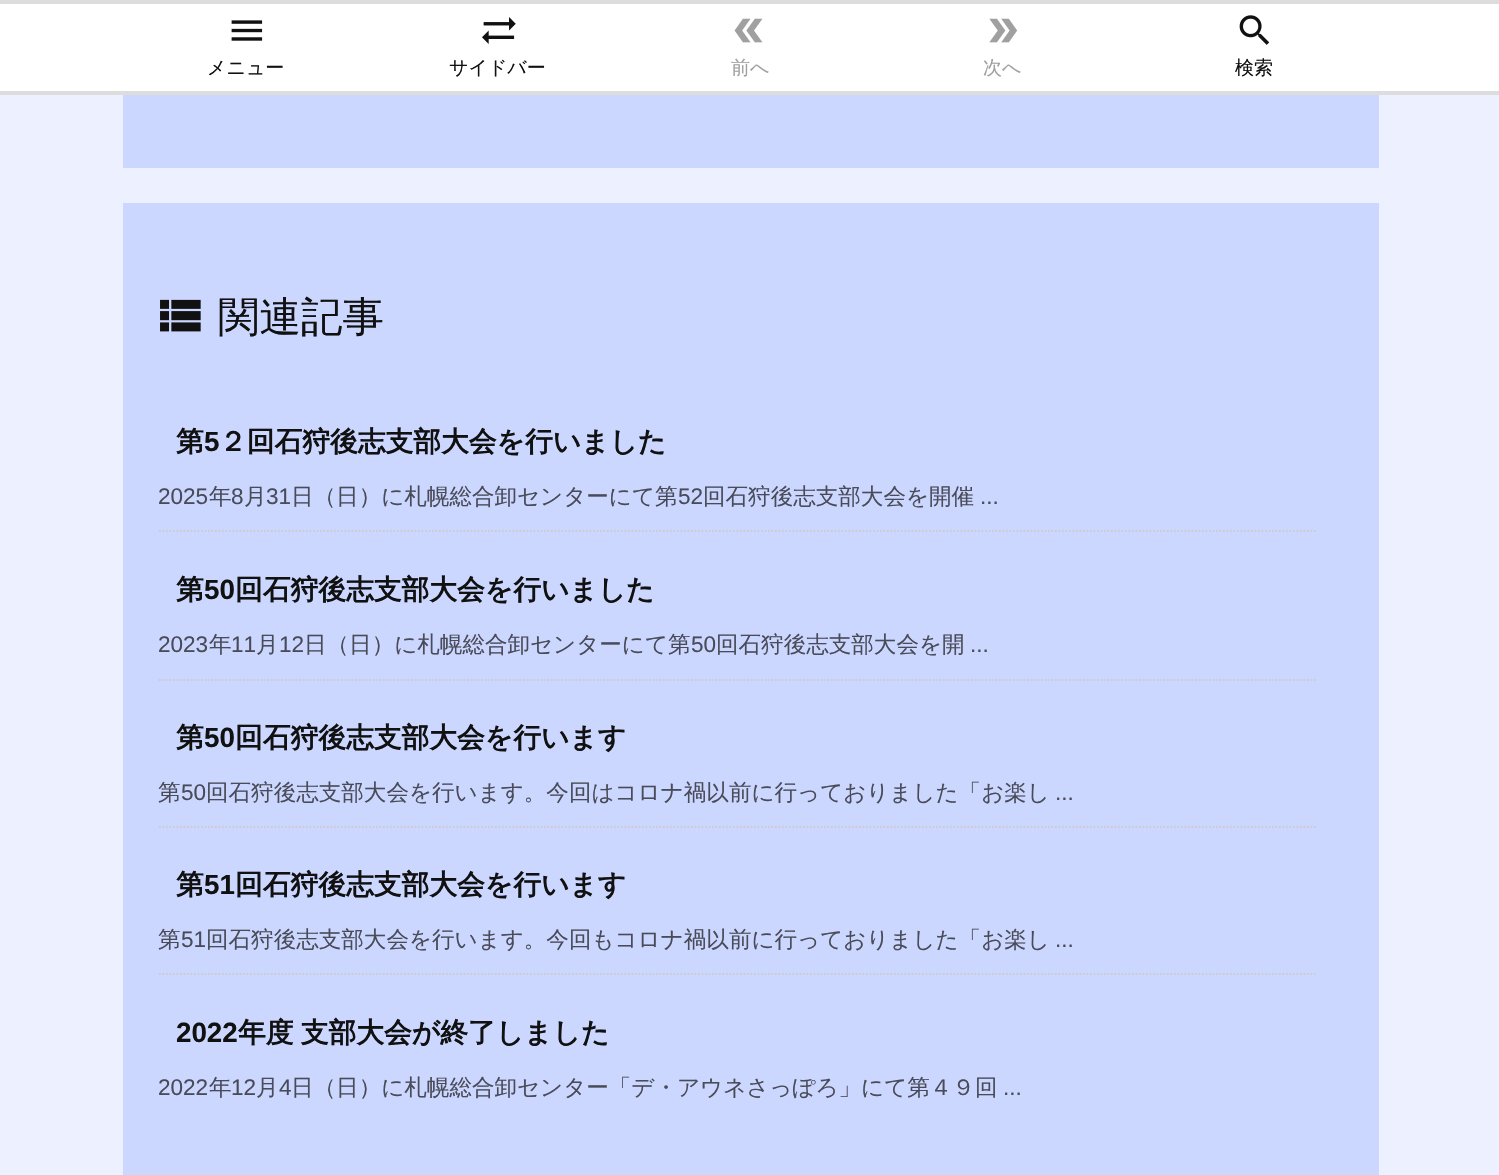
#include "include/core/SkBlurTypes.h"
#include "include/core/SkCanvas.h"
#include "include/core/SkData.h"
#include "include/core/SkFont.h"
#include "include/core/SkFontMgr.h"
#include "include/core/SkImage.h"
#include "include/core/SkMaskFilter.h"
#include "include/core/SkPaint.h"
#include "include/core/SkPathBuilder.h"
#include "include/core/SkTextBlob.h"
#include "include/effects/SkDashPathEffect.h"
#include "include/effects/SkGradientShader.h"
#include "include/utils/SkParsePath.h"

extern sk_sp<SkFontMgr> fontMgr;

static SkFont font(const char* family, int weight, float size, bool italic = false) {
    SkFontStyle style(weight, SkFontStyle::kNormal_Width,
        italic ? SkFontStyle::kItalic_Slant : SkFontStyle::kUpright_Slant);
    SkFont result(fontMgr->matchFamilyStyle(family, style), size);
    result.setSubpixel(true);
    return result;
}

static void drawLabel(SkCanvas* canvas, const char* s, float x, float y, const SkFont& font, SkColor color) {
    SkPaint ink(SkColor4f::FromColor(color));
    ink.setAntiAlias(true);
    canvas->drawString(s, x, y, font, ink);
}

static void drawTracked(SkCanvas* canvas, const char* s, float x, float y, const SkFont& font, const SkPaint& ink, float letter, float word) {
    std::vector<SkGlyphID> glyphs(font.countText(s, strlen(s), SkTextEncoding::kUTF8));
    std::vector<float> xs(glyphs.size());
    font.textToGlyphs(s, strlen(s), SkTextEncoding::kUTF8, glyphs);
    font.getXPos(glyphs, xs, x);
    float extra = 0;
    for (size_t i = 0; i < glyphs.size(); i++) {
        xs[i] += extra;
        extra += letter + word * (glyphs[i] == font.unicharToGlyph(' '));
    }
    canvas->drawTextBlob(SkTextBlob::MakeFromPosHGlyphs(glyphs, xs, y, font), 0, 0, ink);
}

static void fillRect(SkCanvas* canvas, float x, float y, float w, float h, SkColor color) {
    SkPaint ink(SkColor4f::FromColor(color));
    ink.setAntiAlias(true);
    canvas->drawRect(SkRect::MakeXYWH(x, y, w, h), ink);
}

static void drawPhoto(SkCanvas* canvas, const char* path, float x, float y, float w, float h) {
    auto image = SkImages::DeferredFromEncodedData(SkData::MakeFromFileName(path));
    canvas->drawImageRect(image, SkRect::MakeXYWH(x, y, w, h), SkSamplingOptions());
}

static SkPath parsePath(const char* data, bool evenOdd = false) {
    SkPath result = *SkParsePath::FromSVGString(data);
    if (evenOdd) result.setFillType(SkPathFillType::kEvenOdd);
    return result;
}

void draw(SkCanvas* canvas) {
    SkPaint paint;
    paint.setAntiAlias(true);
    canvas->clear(0xFFEDF1FF);
    fillRect(canvas, 0, 4, 1499, 87, 0xFFFFFFFF);
    fillRect(canvas, 0, 0, 1499, 4, 0xFFDDDDDD);
    fillRect(canvas, 0, 91, 1499, 4, 0xFFDDDDDD);
    drawPhoto(canvas, "assets/img1.png", 231, 20, 32, 21);
    SkFont font1 = font("WenQuanYi Zen Hei", 500, 19);
    drawLabel(canvas, "メニュー", 207, 74, font1, 0xFF111111);
    drawPhoto(canvas, "assets/img2.png", 482, 17, 34, 27);
    drawLabel(canvas, "サイドバー", 449, 74, font1, 0xFF111111);
    drawPhoto(canvas, "assets/img3.png", 734, 18, 29, 25);
    drawLabel(canvas, "前へ", 731, 74, font1, 0xFFA0A0A0);
    drawPhoto(canvas, "assets/img4.png", 989, 18, 29, 25);
    drawLabel(canvas, "次へ", 983, 74, font1, 0xFFA0A0A0);
    drawPhoto(canvas, "assets/img5.png", 1239, 15, 31, 30);
    drawLabel(canvas, "検索", 1235, 74, font1, 0xFF111111);
    fillRect(canvas, 123, 95, 1256, 73, 0xFFCCD7FF);
    fillRect(canvas, 123, 203, 1256, 972, 0xFFCCD7FF);
    drawPhoto(canvas, "assets/img6.png", 160, 299, 41, 33);
    SkFont font2 = font("WenQuanYi Zen Hei", 500, 41.5f);
    drawLabel(canvas, "関連記事", 218, 331, font2, 0xFF111111);
    SkFont font3 = font("WenQuanYi Zen Hei", 700, 27.75f);
    drawLabel(canvas, "第", 176, 451, font3, 0xFF111111);
    SkFont font4 = font("Liberation Sans", 700, 27.75f);
    drawLabel(canvas, "5", 204, 451, font4, 0xFF111111);
    drawLabel(canvas, "２回石狩後志支部大会を行いました", 219, 451, font3, 0xFF111111);
    SkFont font5 = font("Liberation Sans", 400, 22.55f);
    drawLabel(canvas, "2025", 158, 504, font5, 0xFF494C58);
    SkFont font6 = font("WenQuanYi Zen Hei", 500, 22.55f);
    drawLabel(canvas, "年", 209, 504, font6, 0xFF494C58);
    drawLabel(canvas, "8", 231, 504, font5, 0xFF494C58);
    drawLabel(canvas, "月", 244, 504, font6, 0xFF494C58);
    drawLabel(canvas, "31", 266, 504, font5, 0xFF494C58);
    drawLabel(canvas, "日（日）に札幌総合卸センターにて第", 291, 504, font6, 0xFF494C58);
    drawLabel(canvas, "52", 678, 504, font5, 0xFF494C58);
    drawLabel(canvas, "回石狩後志支部大会を開催", 703, 504, font6, 0xFF494C58);
    drawLabel(canvas, "...", 980, 504, font5, 0xFF494C58);
    paint.setStroke(true);
    paint.setStrokeWidth(1.8f);
    paint.setColor(0xFFCCCCCC);
    paint.setPathEffect(SkDashPathEffect::Make({{1.75f, 1.75f}}, 0));
    canvas->drawPath(parsePath("M159 531H1316"), paint);
    paint.setPathEffect(nullptr);
    drawLabel(canvas, "第", 176, 599, font3, 0xFF111111);
    drawLabel(canvas, "50", 204, 599, font4, 0xFF111111);
    drawLabel(canvas, "回石狩後志支部大会を行いました", 235, 599, font3, 0xFF111111);
    drawLabel(canvas, "2023", 158, 652, font5, 0xFF494C58);
    drawLabel(canvas, "年", 209, 652, font6, 0xFF494C58);
    drawLabel(canvas, "11", 231, 652, font5, 0xFF494C58);
    drawLabel(canvas, "月", 256, 652, font6, 0xFF494C58);
    drawLabel(canvas, "12", 279, 652, font5, 0xFF494C58);
    drawLabel(canvas, "日（日）に札幌総合卸センターにて第", 304, 652, font6, 0xFF494C58);
    drawLabel(canvas, "50", 691, 652, font5, 0xFF494C58);
    drawLabel(canvas, "回石狩後志支部大会を開", 716, 652, font6, 0xFF494C58);
    drawLabel(canvas, "...", 970, 652, font5, 0xFF494C58);
    paint.setPathEffect(SkDashPathEffect::Make({{1.75f, 1.75f}}, 0));
    canvas->drawPath(parsePath("M159 680H1316"), paint);
    paint.setPathEffect(nullptr);
    drawLabel(canvas, "第", 176, 747, font3, 0xFF111111);
    drawLabel(canvas, "50", 204, 747, font4, 0xFF111111);
    drawLabel(canvas, "回石狩後志支部大会を行います", 235, 747, font3, 0xFF111111);
    drawLabel(canvas, "第", 158, 800, font6, 0xFF494C58);
    drawLabel(canvas, "50", 181, 800, font5, 0xFF494C58);
    drawLabel(canvas, "回石狩後志支部大会を行います。今回はコロナ禍以前に行っておりました「お楽し", 206, 800, font6, 0xFF494C58);
    drawLabel(canvas, "...", 1055, 800, font5, 0xFF494C58);
    paint.setPathEffect(SkDashPathEffect::Make({{1.75f, 1.75f}}, 0));
    canvas->drawPath(parsePath("M159 827H1316"), paint);
    paint.setPathEffect(nullptr);
    drawLabel(canvas, "第", 176, 894, font3, 0xFF111111);
    drawLabel(canvas, "51", 204, 894, font4, 0xFF111111);
    drawLabel(canvas, "回石狩後志支部大会を行います", 235, 894, font3, 0xFF111111);
    drawLabel(canvas, "第", 158, 947, font6, 0xFF494C58);
    drawLabel(canvas, "51", 181, 947, font5, 0xFF494C58);
    drawLabel(canvas, "回石狩後志支部大会を行います。今回もコロナ禍以前に行っておりました「お楽し", 206, 947, font6, 0xFF494C58);
    drawLabel(canvas, "...", 1055, 947, font5, 0xFF494C58);
    paint.setPathEffect(SkDashPathEffect::Make({{1.75f, 1.75f}}, 0));
    canvas->drawPath(parsePath("M159 974H1316"), paint);
    paint.setPathEffect(nullptr);
    drawLabel(canvas, "2022", 176, 1042, font4, 0xFF111111);
    paint.setStroke(false);
    paint.setColor(0xFF111111);
    drawTracked(canvas, "年度 支部大会が終了しました", 238, 1042, font3, paint, 0, -1);
    drawLabel(canvas, "2022", 158, 1095, font5, 0xFF494C58);
    drawLabel(canvas, "年", 209, 1095, font6, 0xFF494C58);
    drawLabel(canvas, "12", 231, 1095, font5, 0xFF494C58);
    drawLabel(canvas, "月", 256, 1095, font6, 0xFF494C58);
    drawLabel(canvas, "4", 279, 1095, font5, 0xFF494C58);
    drawLabel(canvas, "日（日）に札幌総合卸センター「デ・アウネさっぽろ」にて第４９回", 291, 1095, font6, 0xFF494C58);
    drawLabel(canvas, "...", 1003, 1095, font5, 0xFF494C58);
}
